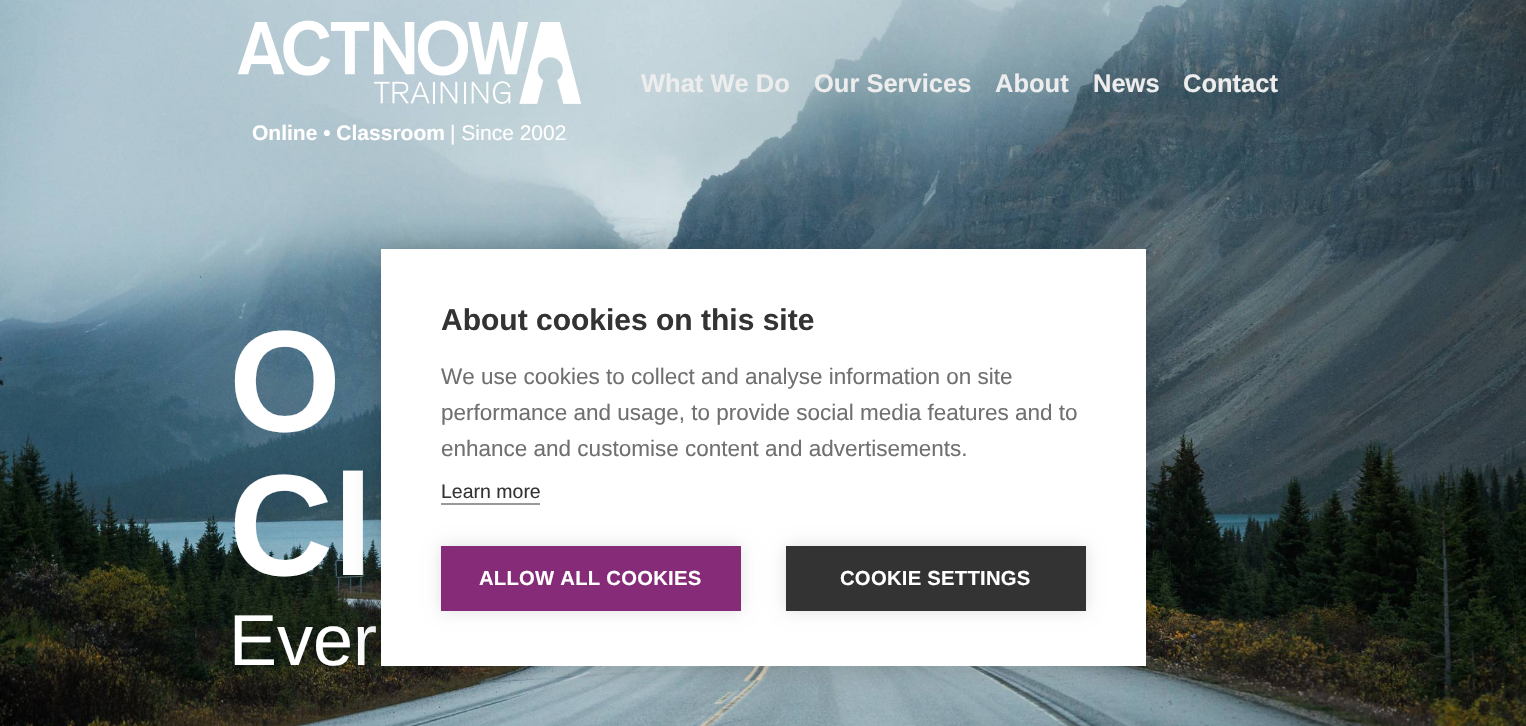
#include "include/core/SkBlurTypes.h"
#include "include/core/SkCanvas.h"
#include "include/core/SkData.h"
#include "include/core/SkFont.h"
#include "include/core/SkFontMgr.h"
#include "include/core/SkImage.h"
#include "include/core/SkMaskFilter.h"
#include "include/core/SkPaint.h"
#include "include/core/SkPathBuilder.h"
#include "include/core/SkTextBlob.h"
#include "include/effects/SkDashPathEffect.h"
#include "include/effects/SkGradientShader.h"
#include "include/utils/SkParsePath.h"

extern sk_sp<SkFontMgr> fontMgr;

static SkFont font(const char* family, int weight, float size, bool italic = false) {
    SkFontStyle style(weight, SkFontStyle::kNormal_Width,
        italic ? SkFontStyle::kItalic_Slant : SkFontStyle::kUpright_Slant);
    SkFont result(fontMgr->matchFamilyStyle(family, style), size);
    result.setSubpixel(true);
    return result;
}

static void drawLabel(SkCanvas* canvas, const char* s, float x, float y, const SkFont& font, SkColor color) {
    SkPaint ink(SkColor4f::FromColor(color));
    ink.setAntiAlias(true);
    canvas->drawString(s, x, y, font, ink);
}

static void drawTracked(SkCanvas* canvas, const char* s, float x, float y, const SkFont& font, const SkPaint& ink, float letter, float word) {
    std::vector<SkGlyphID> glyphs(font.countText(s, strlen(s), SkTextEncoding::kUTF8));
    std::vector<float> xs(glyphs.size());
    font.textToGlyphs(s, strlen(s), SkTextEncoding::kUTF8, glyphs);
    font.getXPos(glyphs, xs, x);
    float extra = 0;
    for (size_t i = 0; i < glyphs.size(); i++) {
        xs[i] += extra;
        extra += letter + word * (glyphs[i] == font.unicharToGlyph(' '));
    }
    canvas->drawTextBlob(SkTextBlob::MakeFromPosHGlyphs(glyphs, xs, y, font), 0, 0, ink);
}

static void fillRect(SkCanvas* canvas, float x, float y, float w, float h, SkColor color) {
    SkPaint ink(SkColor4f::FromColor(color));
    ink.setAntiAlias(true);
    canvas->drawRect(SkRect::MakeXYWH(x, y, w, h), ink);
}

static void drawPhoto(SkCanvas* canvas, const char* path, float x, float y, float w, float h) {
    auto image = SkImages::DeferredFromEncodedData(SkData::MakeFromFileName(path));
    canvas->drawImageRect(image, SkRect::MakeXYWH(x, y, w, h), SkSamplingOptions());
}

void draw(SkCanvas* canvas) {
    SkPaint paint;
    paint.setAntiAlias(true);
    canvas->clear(0xFFFFFFFF);
    drawPhoto(canvas, "assets/img2.png", 0, 0, 1526, 726);
    SkFont font1 = font("Liberation Sans", 700, 25.5f);
    drawLabel(canvas, "What We Do", 641, 92, font1, 0xFFEDEDED);
    drawLabel(canvas, "Our Services", 814, 92, font1, 0xFFEDEDED);
    drawLabel(canvas, "About", 995, 92, font1, 0xFFEDEDED);
    drawLabel(canvas, "News", 1093, 92, font1, 0xFFEDEDED);
    drawLabel(canvas, "Contact", 1183, 92, font1, 0xFFEDEDED);
    drawPhoto(canvas, "assets/img1.png", 237, 20, 345, 84);
    SkFont font2 = font("Liberation Sans", 700, 21);
    drawLabel(canvas, "Online • Classroom", 252, 140, font2, 0xFFFFFFFF);
    SkFont font3 = font("Liberation Sans", 400, 21);
    drawLabel(canvas, "| Since 2002", 450, 140, font3, 0xFFFFFFFF);
    SkFont font4 = font("Liberation Sans", 700, 144);
    drawLabel(canvas, "O", 229, 431, font4, 0xFFFFFFFF);
    drawLabel(canvas, "Cl", 229, 575, font4, 0xFFFFFFFF);
    SkFont font5 = font("Liberation Sans", 400, 72);
    drawLabel(canvas, "Ever", 229, 665, font5, 0xFFFFFFFF);
    paint.setColor(0x33000000);
    paint.setMaskFilter(SkMaskFilter::MakeBlur(kNormal_SkBlurStyle, 15));
    canvas->drawRect(SkRect::MakeXYWH(381, 249, 765, 417), paint);
    paint.setMaskFilter(nullptr);
    fillRect(canvas, 381, 249, 765, 417, 0xFFFFFFFF);
    SkFont font6 = font("Liberation Sans", 700, 30);
    drawLabel(canvas, "About cookies on this site", 441, 330, font6, 0xFF333333);
    SkFont font7 = font("Liberation Sans", 400, 22.5f);
    drawLabel(canvas, "We use cookies to collect and analyse information on site", 441, 384, font7, 0xFF707070);
    drawLabel(canvas, "performance and usage, to provide social media features and to", 441, 420, font7, 0xFF707070);
    drawLabel(canvas, "enhance and customise content and advertisements.", 441, 456, font7, 0xFF707070);
    SkFont font8 = font("Liberation Sans", 400, 19.5f);
    drawLabel(canvas, "Learn more", 441, 498, font8, 0xFF333333);
    fillRect(canvas, 441, 503, 99, 2, 0xFF999999);
    paint.setColor(0x1F000000);
    paint.setMaskFilter(SkMaskFilter::MakeBlur(kNormal_SkBlurStyle, 7.5f));
    canvas->drawRect(SkRect::MakeXYWH(441, 546, 300, 65), paint);
    paint.setMaskFilter(nullptr);
    fillRect(canvas, 441, 546, 300, 65, 0xFF862B78);
    SkFont font9 = font("Liberation Sans", 700, 20.25f);
    paint.setColor(0xFFFFFFFF);
    drawTracked(canvas, "ALLOW ALL COOKIES", 479, 585, font9, paint, 0.25f, 0);
    paint.setColor(0x1F000000);
    paint.setMaskFilter(SkMaskFilter::MakeBlur(kNormal_SkBlurStyle, 7.5f));
    canvas->drawRect(SkRect::MakeXYWH(786, 546, 300, 65), paint);
    paint.setMaskFilter(nullptr);
    fillRect(canvas, 786, 546, 300, 65, 0xFF333333);
    paint.setColor(0xFFFFFFFF);
    drawTracked(canvas, "COOKIE SETTINGS", 840, 585, font9, paint, 0.25f, 0);
}
